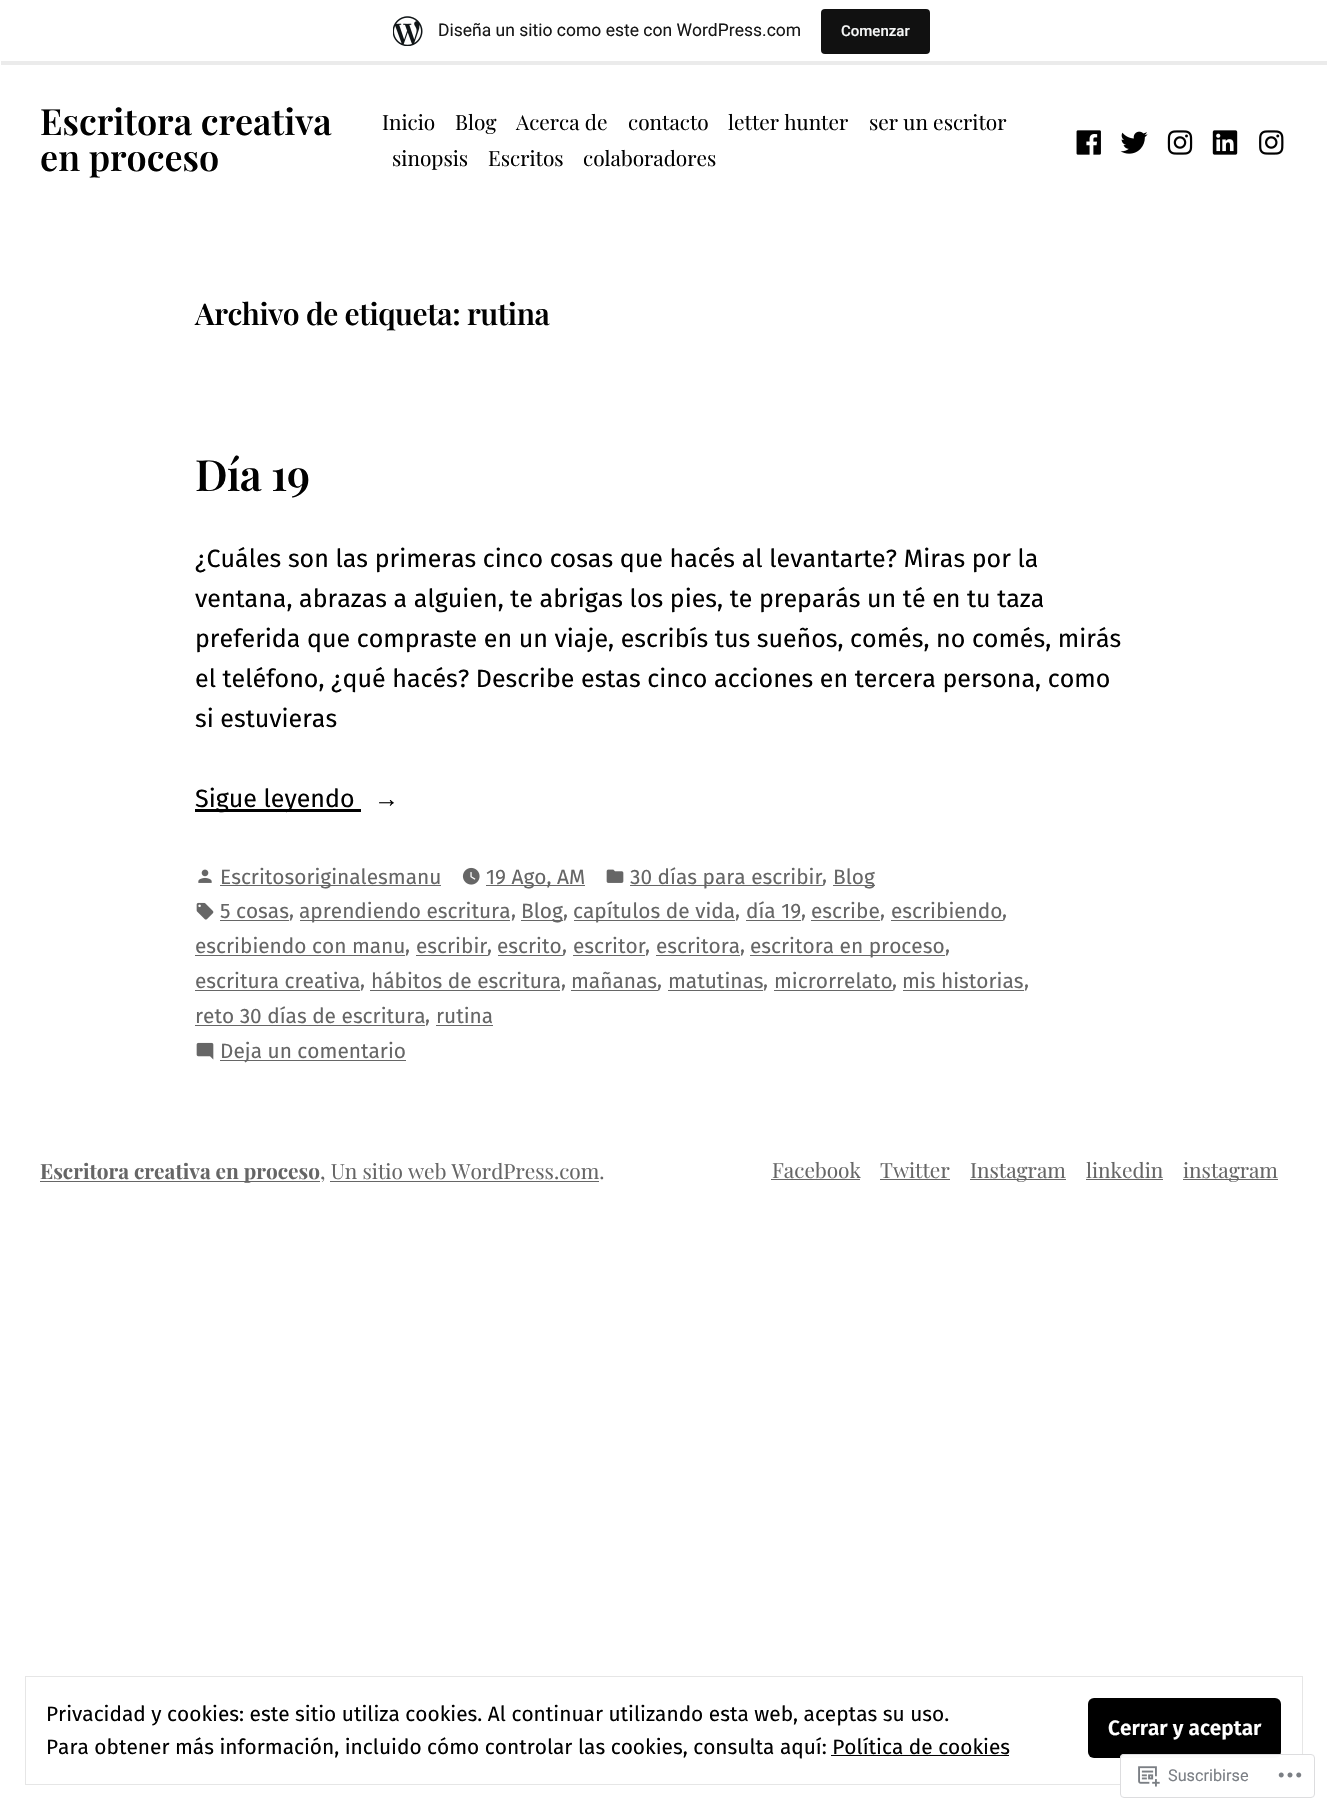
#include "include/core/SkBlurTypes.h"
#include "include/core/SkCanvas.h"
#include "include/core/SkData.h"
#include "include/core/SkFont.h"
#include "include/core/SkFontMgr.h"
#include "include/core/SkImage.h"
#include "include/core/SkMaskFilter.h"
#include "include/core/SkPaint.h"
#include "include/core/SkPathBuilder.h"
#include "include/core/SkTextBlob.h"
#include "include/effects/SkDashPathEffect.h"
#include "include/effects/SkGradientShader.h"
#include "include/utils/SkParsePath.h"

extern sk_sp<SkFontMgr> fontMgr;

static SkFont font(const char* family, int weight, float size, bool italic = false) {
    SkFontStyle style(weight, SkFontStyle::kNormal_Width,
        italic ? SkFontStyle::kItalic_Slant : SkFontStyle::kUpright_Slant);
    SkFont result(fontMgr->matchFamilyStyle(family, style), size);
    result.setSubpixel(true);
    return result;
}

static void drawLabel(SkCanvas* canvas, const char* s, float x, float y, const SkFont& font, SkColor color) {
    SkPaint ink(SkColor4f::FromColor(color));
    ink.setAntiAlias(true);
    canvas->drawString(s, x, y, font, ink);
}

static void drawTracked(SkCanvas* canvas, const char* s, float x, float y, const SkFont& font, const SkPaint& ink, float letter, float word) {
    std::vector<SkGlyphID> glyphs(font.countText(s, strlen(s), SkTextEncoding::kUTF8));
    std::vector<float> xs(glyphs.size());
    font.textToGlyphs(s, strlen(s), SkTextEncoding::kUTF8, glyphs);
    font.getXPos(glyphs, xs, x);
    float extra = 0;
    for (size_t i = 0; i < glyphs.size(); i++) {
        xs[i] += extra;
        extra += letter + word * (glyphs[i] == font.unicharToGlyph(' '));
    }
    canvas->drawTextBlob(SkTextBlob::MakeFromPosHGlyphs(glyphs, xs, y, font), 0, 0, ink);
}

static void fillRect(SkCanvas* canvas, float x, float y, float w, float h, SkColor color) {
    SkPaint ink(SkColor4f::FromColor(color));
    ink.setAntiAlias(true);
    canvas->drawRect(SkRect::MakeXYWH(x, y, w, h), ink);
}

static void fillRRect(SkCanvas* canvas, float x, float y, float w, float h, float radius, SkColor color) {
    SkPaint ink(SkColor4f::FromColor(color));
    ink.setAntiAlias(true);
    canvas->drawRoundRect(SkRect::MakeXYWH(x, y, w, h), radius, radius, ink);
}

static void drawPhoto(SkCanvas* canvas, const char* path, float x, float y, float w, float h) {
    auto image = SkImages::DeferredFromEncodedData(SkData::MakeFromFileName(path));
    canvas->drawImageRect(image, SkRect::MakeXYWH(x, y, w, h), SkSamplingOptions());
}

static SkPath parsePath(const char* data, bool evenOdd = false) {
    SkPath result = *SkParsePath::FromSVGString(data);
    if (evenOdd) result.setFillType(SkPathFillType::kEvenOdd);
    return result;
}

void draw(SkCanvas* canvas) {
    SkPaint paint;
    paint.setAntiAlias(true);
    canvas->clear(0xFFFFFFFF);
    paint.setColor(0x14000000);
    canvas->drawPath(parsePath("M1 61V65H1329V4H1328V61Z"), paint);
    drawPhoto(canvas, "assets/img1.png", 393, 16, 30, 30);
    SkFont font1 = font("Roboto", 400, 17.5f);
    drawLabel(canvas, "Diseña un sitio como este con WordPress.com", 438, 36, font1, 0xFF171717);
    fillRRect(canvas, 821, 9, 109, 45, 4, 0xFF111111);
    SkFont font2 = font("Roboto", 500, 15);
    drawLabel(canvas, "Comenzar", 841, 36, font2, 0xFFF6F7F7);
    SkFont font3 = font("Playfair Display", 600, 36);
    drawLabel(canvas, "Escritora creativa", 40, 135, font3, 0xFF010101);
    drawLabel(canvas, "en proceso", 40, 171, font3, 0xFF010101);
    SkFont font4 = font("Playfair Display", 400, 20.85f);
    drawLabel(canvas, "Inicio", 382, 130, font4, 0xFF010101);
    drawLabel(canvas, "Blog", 455, 130, font4, 0xFF010101);
    drawLabel(canvas, "Acerca de", 516, 130, font4, 0xFF010101);
    drawLabel(canvas, "contacto", 628, 130, font4, 0xFF010101);
    drawLabel(canvas, "letter hunter", 728, 130, font4, 0xFF010101);
    drawLabel(canvas, "ser un escritor", 869, 130, font4, 0xFF010101);
    drawLabel(canvas, "sinopsis", 392, 166, font4, 0xFF010101);
    drawLabel(canvas, "Escritos", 488, 166, font4, 0xFF010101);
    drawLabel(canvas, "colaboradores", 583, 166, font4, 0xFF010101);
    drawPhoto(canvas, "assets/img2.png", 1076, 130, 25, 25);
    drawPhoto(canvas, "assets/img3.png", 1120, 131, 28, 23);
    drawPhoto(canvas, "assets/img4.png", 1167, 130, 26, 25);
    drawPhoto(canvas, "assets/img5.png", 1212, 130, 26, 25);
    drawPhoto(canvas, "assets/img6.png", 1259, 130, 25, 25);
    SkFont font5 = font("Playfair Display", 600, 30);
    paint.setColor(0xFF010101);
    drawTracked(canvas, "Archivo de etiqueta: rutina", 195, 325, font5, paint, -0.45f, 0);
    SkFont font6 = font("Playfair Display", 600, 43);
    drawTracked(canvas, "Día 19", 195, 491, font6, paint, -0.5f, 0);
    SkFont font7 = font("Fira Sans", 400, 25);
    drawLabel(canvas, "¿Cuáles son las primeras cinco cosas que hacés al levantarte? Miras por la", 195, 567, font7, 0xFF010101);
    drawLabel(canvas, "ventana, abrazas a alguien, te abrigas los pies, te preparás un té en tu taza", 195, 607, font7, 0xFF010101);
    drawLabel(canvas, "preferida que compraste en un viaje, escribís tus sueños, comés, no comés, mirás", 195, 647, font7, 0xFF010101);
    drawLabel(canvas, "el teléfono, ¿qué hacés? Describe estas cinco acciones en tercera persona, como", 195, 687, font7, 0xFF010101);
    drawLabel(canvas, "si estuvieras", 195, 727, font7, 0xFF010101);
    fillRect(canvas, 195, 809, 166, 3, 0xFF010101);
    drawLabel(canvas, "Sigue leyendo", 195, 807, font7, 0xFF010101);
    SkFont font8 = font("Liberation Serif", 400, 25);
    drawLabel(canvas, "→", 374, 807, font8, 0xFF010101);
    drawPhoto(canvas, "assets/img7.png", 198, 869, 14, 14);
    fillRect(canvas, 220, 885, 221, 1, 0xFF666666);
    SkFont font9 = font("Fira Sans", 400, 20.85f);
    drawLabel(canvas, "Escritosoriginalesmanu", 220, 884, font9, 0xFF666666);
    drawPhoto(canvas, "assets/img8.png", 462, 867, 18, 18);
    fillRect(canvas, 486, 885, 99, 1, 0xFF666666);
    drawLabel(canvas, "19 Ago, AM", 486, 884, font9, 0xFF666666);
    drawPhoto(canvas, "assets/img9.png", 606, 869, 18, 14);
    fillRect(canvas, 630, 885, 193, 1, 0xFF666666);
    drawLabel(canvas, "30 días para escribir", 630, 884, font9, 0xFF666666);
    drawLabel(canvas, ",", 822, 882, font9, 0xFF666666);
    fillRect(canvas, 833, 885, 42, 1, 0xFF666666);
    drawLabel(canvas, "Blog", 833, 884, font9, 0xFF666666);
    drawPhoto(canvas, "assets/img10.png", 196, 902, 18, 18);
    drawLabel(canvas, "5 cosas", 220, 918, font9, 0xFF666666);
    fillRect(canvas, 220, 920, 69, 1, 0xFF666666);
    drawLabel(canvas, ",", 289, 917, font9, 0xFF666666);
    fillRect(canvas, 300, 920, 210, 1, 0xFF666666);
    drawLabel(canvas, "aprendiendo escritura", 299, 918, font9, 0xFF666666);
    drawLabel(canvas, ",", 511, 917, font9, 0xFF666666);
    fillRect(canvas, 521, 920, 42, 1, 0xFF666666);
    drawLabel(canvas, "Blog", 521, 918, font9, 0xFF666666);
    drawLabel(canvas, ",", 563, 917, font9, 0xFF666666);
    fillRect(canvas, 574, 920, 161, 1, 0xFF666666);
    drawLabel(canvas, "capítulos de vida", 573, 918, font9, 0xFF666666);
    drawLabel(canvas, ",", 735, 917, font9, 0xFF666666);
    drawLabel(canvas, "día 19", 746, 918, font9, 0xFF666666);
    fillRect(canvas, 746, 920, 55, 1, 0xFF666666);
    drawLabel(canvas, ",", 801, 917, font9, 0xFF666666);
    drawLabel(canvas, "escribe", 811, 918, font9, 0xFF666666);
    fillRect(canvas, 811, 920, 69, 1, 0xFF666666);
    drawLabel(canvas, ",", 880, 917, font9, 0xFF666666);
    drawLabel(canvas, "escribiendo", 891, 918, font9, 0xFF666666);
    fillRect(canvas, 891, 920, 112, 1, 0xFF666666);
    drawLabel(canvas, ",", 1002, 917, font9, 0xFF666666);
    drawLabel(canvas, "escribiendo con manu", 195, 953, font9, 0xFF666666);
    fillRect(canvas, 195, 955, 210, 1, 0xFF666666);
    drawLabel(canvas, ",", 405, 952, font9, 0xFF666666);
    drawLabel(canvas, "escribir", 416, 953, font9, 0xFF666666);
    fillRect(canvas, 416, 955, 72, 1, 0xFF666666);
    drawLabel(canvas, ",", 487, 952, font9, 0xFF666666);
    drawLabel(canvas, "escrito", 497, 953, font9, 0xFF666666);
    fillRect(canvas, 498, 955, 65, 1, 0xFF666666);
    drawLabel(canvas, ",", 562, 952, font9, 0xFF666666);
    drawLabel(canvas, "escritor", 573, 953, font9, 0xFF666666);
    fillRect(canvas, 573, 955, 72, 1, 0xFF666666);
    drawLabel(canvas, ",", 645, 952, font9, 0xFF666666);
    drawLabel(canvas, "escritora", 656, 953, font9, 0xFF666666);
    fillRect(canvas, 656, 955, 84, 1, 0xFF666666);
    drawLabel(canvas, ",", 740, 952, font9, 0xFF666666);
    fillRect(canvas, 750, 955, 195, 1, 0xFF666666);
    drawLabel(canvas, "escritora en proceso", 750, 953, font9, 0xFF666666);
    drawLabel(canvas, ",", 945, 952, font9, 0xFF666666);
    drawLabel(canvas, "escritura creativa", 195, 988, font9, 0xFF666666);
    fillRect(canvas, 195, 990, 165, 1, 0xFF666666);
    drawLabel(canvas, ",", 360, 987, font9, 0xFF666666);
    drawLabel(canvas, "hábitos de escritura", 371, 988, font9, 0xFF666666);
    fillRect(canvas, 370, 990, 190, 1, 0xFF666666);
    drawLabel(canvas, ",", 561, 987, font9, 0xFF666666);
    drawLabel(canvas, "mañanas", 571, 988, font9, 0xFF666666);
    fillRect(canvas, 571, 990, 87, 1, 0xFF666666);
    drawLabel(canvas, ",", 657, 987, font9, 0xFF666666);
    drawLabel(canvas, "matutinas", 668, 988, font9, 0xFF666666);
    fillRect(canvas, 668, 990, 95, 1, 0xFF666666);
    drawLabel(canvas, ",", 763, 987, font9, 0xFF666666);
    drawLabel(canvas, "microrrelato", 774, 988, font9, 0xFF666666);
    fillRect(canvas, 774, 990, 119, 1, 0xFF666666);
    drawLabel(canvas, ",", 892, 987, font9, 0xFF666666);
    drawLabel(canvas, "mis historias", 902, 988, font9, 0xFF666666);
    fillRect(canvas, 903, 990, 121, 1, 0xFF666666);
    drawLabel(canvas, ",", 1024, 987, font9, 0xFF666666);
    drawLabel(canvas, "reto 30 días de escritura", 195, 1023, font9, 0xFF666666);
    fillRect(canvas, 195, 1025, 230, 1, 0xFF666666);
    drawLabel(canvas, ",", 425, 1022, font9, 0xFF666666);
    drawLabel(canvas, "rutina", 436, 1023, font9, 0xFF666666);
    fillRect(canvas, 436, 1025, 57, 1, 0xFF666666);
    drawPhoto(canvas, "assets/img11.png", 196, 1042, 18, 18);
    fillRect(canvas, 220, 1060, 186, 1, 0xFF666666);
    drawLabel(canvas, "Deja un comentario", 220, 1058, font9, 0xFF666666);
    fillRect(canvas, 40, 1181, 280, 1, 0xFF666666);
    SkFont font10 = font("Playfair Display", 700, 20.85f);
    drawLabel(canvas, "Escritora creativa en proceso", 40, 1179, font10, 0xFF666666);
    drawLabel(canvas, ", Un sitio web WordPress.com.", 320, 1179, font4, 0xFF666666);
    fillRect(canvas, 330, 1181, 269, 1, 0xFF666666);
    drawLabel(canvas, "Facebook", 772, 1178, font4, 0xFF666666);
    fillRect(canvas, 771, 1179, 89, 1, 0xFF666666);
    drawLabel(canvas, "Twitter", 880, 1178, font4, 0xFF666666);
    fillRect(canvas, 880, 1179, 70, 1, 0xFF666666);
    fillRect(canvas, 970, 1179, 96, 1, 0xFF666666);
    drawLabel(canvas, "Instagram", 970, 1178, font4, 0xFF666666);
    drawLabel(canvas, "linkedin", 1086, 1178, font4, 0xFF666666);
    fillRect(canvas, 1086, 1179, 77, 1, 0xFF666666);
    fillRect(canvas, 1183, 1179, 95, 1, 0xFF666666);
    drawLabel(canvas, "instagram", 1183, 1178, font4, 0xFF666666);
    paint.setStroke(true);
    paint.setStrokeWidth(1);
    paint.setColor(0xFFE6E6E6);
    canvas->drawRect(SkRect::MakeXYWH(25.5f, 1676.5f, 1277, 108), paint);
    drawLabel(canvas, "Privacidad y cookies: este sitio utiliza cookies. Al continuar utilizando esta web, aceptas su uso.", 46, 1721, font9, 0xFF010101);
    fillRRect(canvas, 1088, 1698, 193, 60, 6, 0xFF000000);
    SkFont font11 = font("Fira Sans", 600, 20.85f);
    drawLabel(canvas, "Cerrar y aceptar", 1108, 1735, font11, 0xFFFFFFFF);
    drawLabel(canvas, "Para obtener más información, incluido cómo controlar las cookies, consulta aquí: Política de cookies", 46, 1754, font9, 0xFF010101);
    fillRect(canvas, 831, 1755, 178, 1, 0xFF010101);
    fillRRect(canvas, 1120, 1754, 195, 44, 4, 0xFAFFFFFF);
    paint.setColor(0xFADCDCDE);
    canvas->drawRoundRect(SkRect::MakeXYWH(1120.5f, 1754.5f, 194, 43), 3.5f, 3.5f, paint);
    drawPhoto(canvas, "assets/img12.png", 1138, 1766, 22, 21);
    SkFont font12 = font("Roboto", 400, 16.25f);
    drawLabel(canvas, "Suscribirse", 1168, 1781, font12, 0xFF7B7F85);
    drawPhoto(canvas, "assets/img13.png", 1278, 1772, 24, 6);
}
